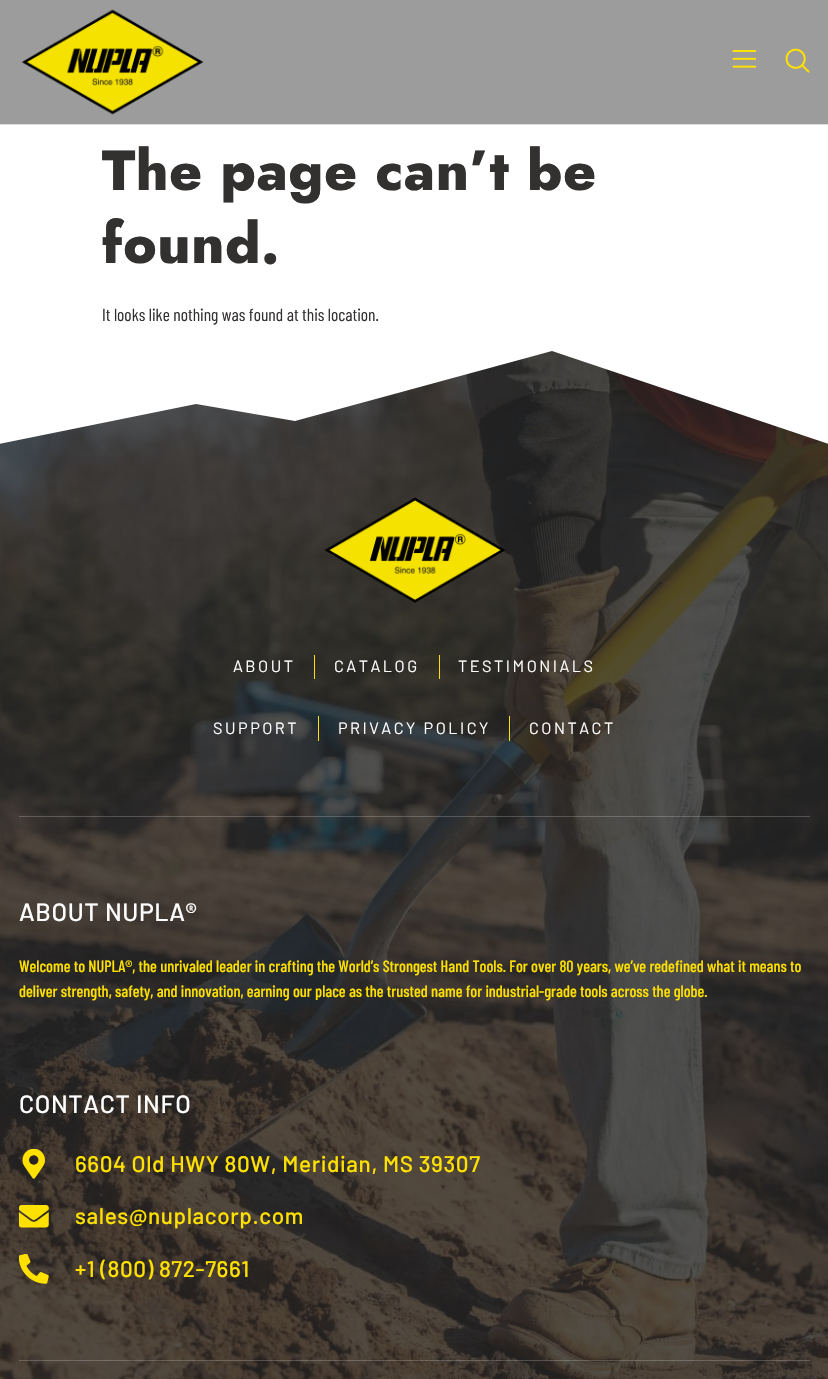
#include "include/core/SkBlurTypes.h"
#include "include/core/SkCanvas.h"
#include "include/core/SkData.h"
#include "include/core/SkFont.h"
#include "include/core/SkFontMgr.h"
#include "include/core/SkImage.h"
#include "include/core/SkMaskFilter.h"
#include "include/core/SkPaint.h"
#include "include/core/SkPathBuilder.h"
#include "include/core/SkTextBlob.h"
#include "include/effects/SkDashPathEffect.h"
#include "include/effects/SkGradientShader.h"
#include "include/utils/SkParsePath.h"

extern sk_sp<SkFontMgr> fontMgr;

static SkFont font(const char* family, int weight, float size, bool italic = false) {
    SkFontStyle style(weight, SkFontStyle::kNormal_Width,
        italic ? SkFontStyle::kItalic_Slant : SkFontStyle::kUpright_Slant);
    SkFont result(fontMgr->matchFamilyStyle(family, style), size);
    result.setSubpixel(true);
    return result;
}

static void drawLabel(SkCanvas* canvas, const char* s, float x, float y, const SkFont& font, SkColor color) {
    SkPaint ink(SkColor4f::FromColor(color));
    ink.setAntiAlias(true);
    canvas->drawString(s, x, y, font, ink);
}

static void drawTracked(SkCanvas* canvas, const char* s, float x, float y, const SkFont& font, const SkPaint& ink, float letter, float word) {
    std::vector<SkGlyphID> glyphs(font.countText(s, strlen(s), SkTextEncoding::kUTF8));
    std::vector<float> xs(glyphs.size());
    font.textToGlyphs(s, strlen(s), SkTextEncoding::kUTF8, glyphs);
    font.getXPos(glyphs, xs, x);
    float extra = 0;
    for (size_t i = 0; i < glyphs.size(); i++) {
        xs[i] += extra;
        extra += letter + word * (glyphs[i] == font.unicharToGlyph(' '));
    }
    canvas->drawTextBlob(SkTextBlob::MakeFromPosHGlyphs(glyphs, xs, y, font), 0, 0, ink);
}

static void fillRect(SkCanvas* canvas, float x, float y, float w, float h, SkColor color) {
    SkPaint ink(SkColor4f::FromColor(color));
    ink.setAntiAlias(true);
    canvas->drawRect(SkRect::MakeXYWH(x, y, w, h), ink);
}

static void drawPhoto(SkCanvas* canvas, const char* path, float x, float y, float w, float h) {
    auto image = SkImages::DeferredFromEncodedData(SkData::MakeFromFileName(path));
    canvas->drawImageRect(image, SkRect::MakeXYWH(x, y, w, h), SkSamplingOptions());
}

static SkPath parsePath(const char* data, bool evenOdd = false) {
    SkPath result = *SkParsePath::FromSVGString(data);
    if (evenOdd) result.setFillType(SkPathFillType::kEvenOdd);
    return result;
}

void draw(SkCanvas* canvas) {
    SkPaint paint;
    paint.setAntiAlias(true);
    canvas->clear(0xFFFFFFFF);
    fillRect(canvas, 0, 124, 828, 1, 0xFFDCDCDC);
    fillRect(canvas, 0, 0, 828, 124, 0xFF9D9C9C);
    drawPhoto(canvas, "assets/img1.png", 21, 9, 183, 106);
    drawPhoto(canvas, "assets/img2.png", 732, 50, 25, 18);
    drawPhoto(canvas, "assets/img3.png", 785, 48, 25, 25);
    SkFont font1 = font("Jost", 800, 56.25f);
    paint.setColor(0xFF333030);
    drawTracked(canvas, "The page can’t be", 102, 190, font1, paint, 0.6f, 0);
    drawTracked(canvas, "found.", 102, 263, font1, paint, 0.6f, 0);
    SkFont font2 = font("Barlow Condensed", 400, 17.5f);
    drawLabel(canvas, "It looks like nothing was found at this location.", 102, 321, font2, 0xFF333030);
    drawPhoto(canvas, "assets/img4.png", 0, 351, 828, 1028);
    paint.setColor(0xFFFFFFFF);
    canvas->drawPath(parsePath("M196 404L295 421L552 351L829 444V345H-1V444"), paint);
    fillRect(canvas, 19, 816, 791, 1, 0x33FFFFFF);
    drawPhoto(canvas, "assets/img5.png", 324, 497, 181, 106);
    SkFont font3 = font("Barlow", 400, 16.25f);
    drawTracked(canvas, "ABOUT", 233, 672, font3, paint, 2.5f, 0);
    fillRect(canvas, 314, 655, 1, 24, 0xFFFFE100);
    drawTracked(canvas, "CATALOG", 334, 672, font3, paint, 2.5f, 0);
    fillRect(canvas, 439, 655, 1, 24, 0xFFFFE100);
    drawTracked(canvas, "TESTIMONIALS", 458, 672, font3, paint, 2.5f, 0);
    drawTracked(canvas, "SUPPORT", 213, 734, font3, paint, 2.5f, 0);
    fillRect(canvas, 318, 716, 1, 25, 0xFFFFE100);
    drawTracked(canvas, "PRIVACY POLICY", 338, 734, font3, paint, 2.5f, 0);
    fillRect(canvas, 509, 716, 1, 25, 0xFFFFE100);
    drawTracked(canvas, "CONTACT", 529, 734, font3, paint, 2.5f, 0);
    SkFont font4 = font("Barlow", 500, 25);
    drawTracked(canvas, "ABOUT NUPLA®", 19, 921, font4, paint, 0.6f, 0);
    SkFont font5 = font("Barlow Condensed", 500, 16.25f);
    drawLabel(canvas, "Welcome to NUPLA®, the unrivaled leader in crafting the World’s Strongest Hand Tools. For over 80 years, we’ve redefined what it means to", 19, 972, font5, 0xFFFFE100);
    drawLabel(canvas, "deliver strength, safety, and innovation, earning our place as the trusted name for industrial-grade tools across the globe.", 19, 997, font5, 0xFFFFE100);
    drawTracked(canvas, "CONTACT INFO", 19, 1113, font4, paint, 0.6f, 0);
    drawPhoto(canvas, "assets/img6.png", 22, 1149, 23, 30);
    SkFont font6 = font("Barlow", 500, 22.5f);
    paint.setColor(0xFFFFE100);
    drawTracked(canvas, "6604 Old HWY 80W, Meridian, MS 39307", 75, 1172, font6, paint, 0.6f, 0);
    drawPhoto(canvas, "assets/img7.png", 19, 1205, 30, 23);
    drawTracked(canvas, "sales@nuplacorp.com", 75, 1224, font6, paint, 0.6f, 0);
    drawPhoto(canvas, "assets/img8.png", 19, 1254, 30, 30);
    drawTracked(canvas, "+1 (800) 872-7661", 75, 1277, font6, paint, 0.6f, 0);
    fillRect(canvas, 19, 1360, 791, 1, 0x33FFFFFF);
}
